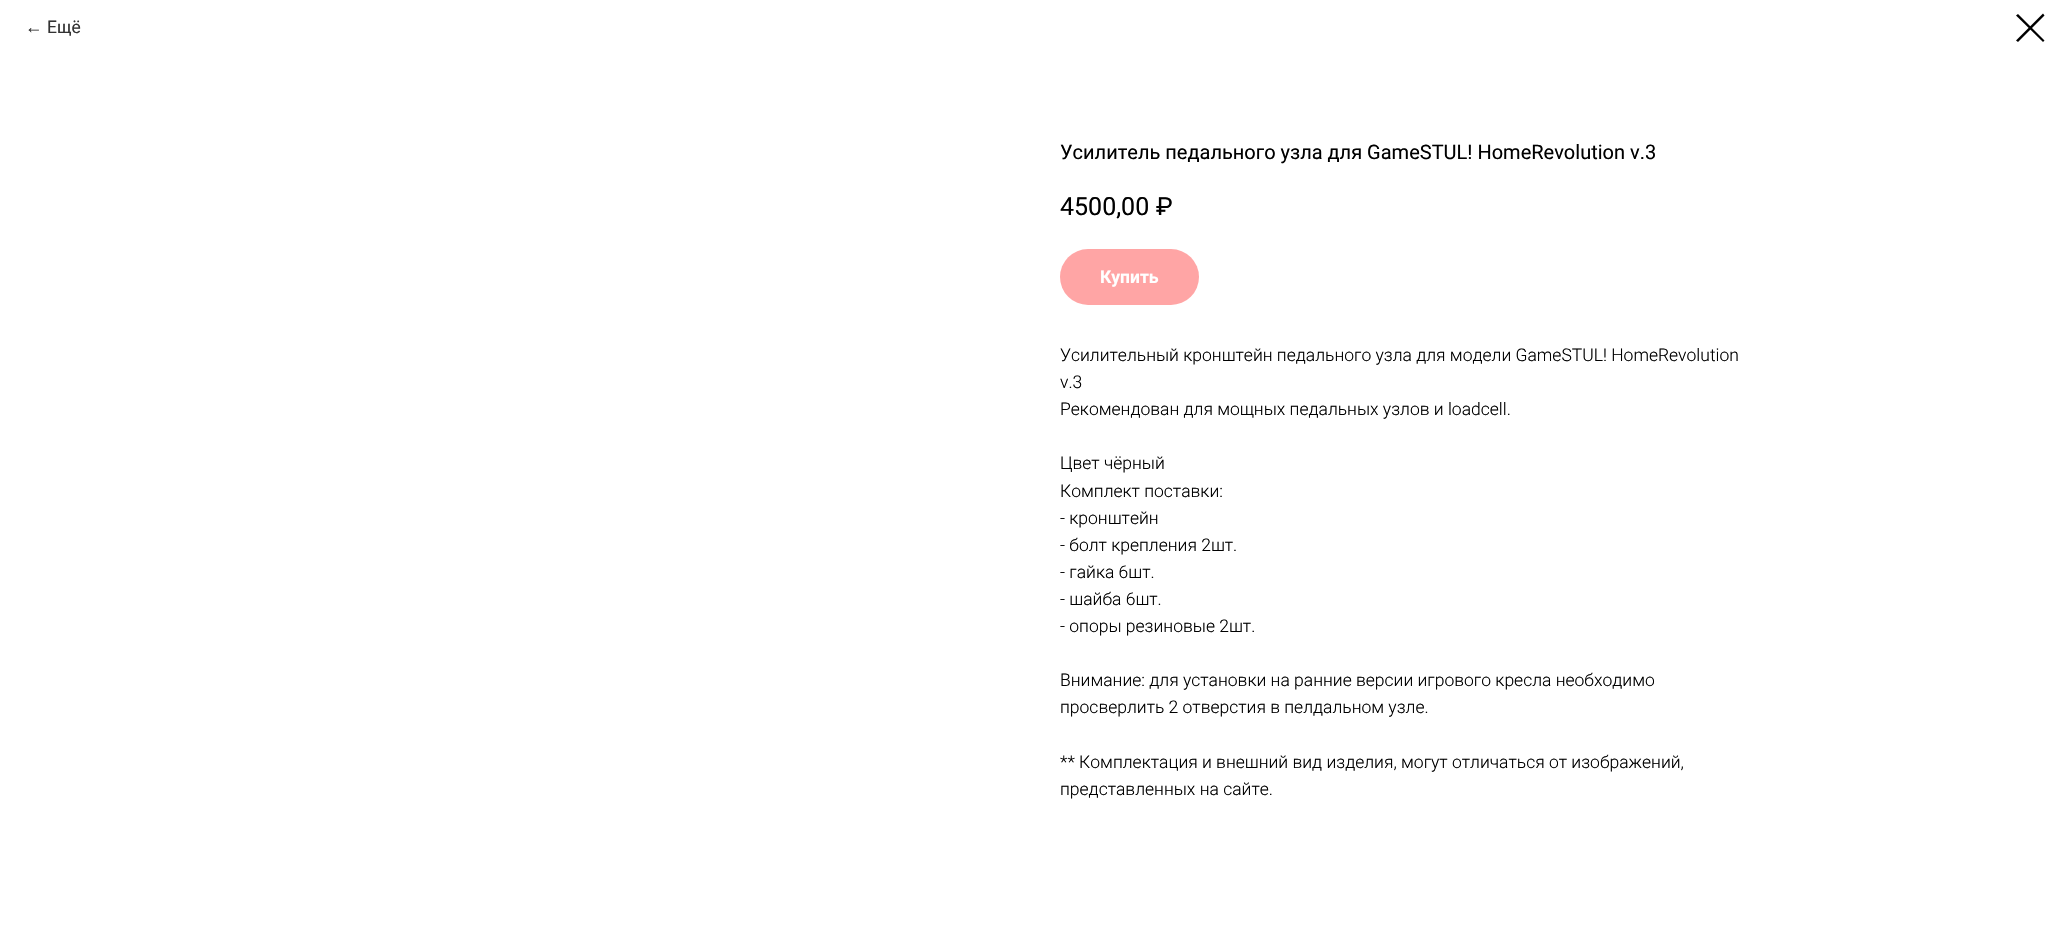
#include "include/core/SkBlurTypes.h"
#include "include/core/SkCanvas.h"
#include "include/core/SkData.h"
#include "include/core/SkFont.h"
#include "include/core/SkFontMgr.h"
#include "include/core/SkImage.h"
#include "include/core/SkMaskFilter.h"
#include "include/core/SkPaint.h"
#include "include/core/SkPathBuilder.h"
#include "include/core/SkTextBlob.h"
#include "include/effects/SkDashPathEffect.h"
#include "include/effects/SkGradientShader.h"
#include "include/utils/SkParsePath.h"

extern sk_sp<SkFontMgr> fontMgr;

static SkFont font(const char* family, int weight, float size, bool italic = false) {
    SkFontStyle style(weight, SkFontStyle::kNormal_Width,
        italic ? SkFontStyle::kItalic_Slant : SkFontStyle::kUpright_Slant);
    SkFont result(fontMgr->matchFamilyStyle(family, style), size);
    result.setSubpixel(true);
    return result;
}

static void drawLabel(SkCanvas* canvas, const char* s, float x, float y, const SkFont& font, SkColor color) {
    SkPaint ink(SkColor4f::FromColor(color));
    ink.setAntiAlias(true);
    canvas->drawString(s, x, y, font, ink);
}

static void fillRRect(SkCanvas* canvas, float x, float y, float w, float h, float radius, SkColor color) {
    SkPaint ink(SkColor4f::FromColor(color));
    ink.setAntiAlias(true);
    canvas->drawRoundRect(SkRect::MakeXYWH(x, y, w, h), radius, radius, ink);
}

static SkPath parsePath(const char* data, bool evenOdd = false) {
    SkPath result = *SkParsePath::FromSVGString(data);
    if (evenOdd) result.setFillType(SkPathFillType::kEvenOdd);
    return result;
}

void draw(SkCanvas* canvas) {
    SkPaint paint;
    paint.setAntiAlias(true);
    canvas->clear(0xFFFFFFFF);
    SkFont font1 = font("Liberation Sans", 400, 17.5f);
    drawLabel(canvas, "←", 25, 33, font1, 0xFF333333);
    SkFont font2 = font("Roboto", 400, 17.5f);
    drawLabel(canvas, "Ещё", 47, 33, font2, 0xFF333333);
    paint.setColor(0xFF000000);
    canvas->drawPath(parsePath("M2016 15.5L2018 14L2044.5 40.5L2043 42Z", true), paint);
    canvas->drawPath(parsePath("M2043 13.5L2044.5 15.5L2018 42L2016 40.5Z", true), paint);
    SkFont font3 = font("Roboto", 400, 20);
    drawLabel(canvas, "Усилитель педального узла для GameSTUL! HomeRevolution v.3", 1060, 159, font3, 0xFF000000);
    SkFont font4 = font("Roboto", 400, 25);
    drawLabel(canvas, "4500,00", 1060, 215, font4, 0xFF000000);
    drawLabel(canvas, "₽", 1156, 215, font4, 0xFF000000);
    fillRRect(canvas, 1060, 249, 139, 56, 28, 0xFFFFA5A5);
    SkFont font5 = font("Roboto", 700, 17.5f);
    drawLabel(canvas, "Купить", 1100, 283, font5, 0xFFFFFFFF);
    SkFont font6 = font("Roboto", 300, 17.5f);
    drawLabel(canvas, "Усилительный кронштейн педального узла для модели GameSTUL! HomeRevolution", 1060, 361, font6, 0xFF000000);
    drawLabel(canvas, "v.3", 1060, 388, font6, 0xFF000000);
    drawLabel(canvas, "Рекомендован для мощных педальных узлов и loadcell.", 1060, 415, font6, 0xFF000000);
    drawLabel(canvas, "Цвет чёрный", 1060, 469, font6, 0xFF000000);
    drawLabel(canvas, "Комплект поставки:", 1060, 497, font6, 0xFF000000);
    drawLabel(canvas, "- кронштейн", 1060, 524, font6, 0xFF000000);
    drawLabel(canvas, "- болт крепления 2шт.", 1060, 551, font6, 0xFF000000);
    drawLabel(canvas, "- гайка 6шт.", 1060, 578, font6, 0xFF000000);
    drawLabel(canvas, "- шайба 6шт.", 1060, 605, font6, 0xFF000000);
    drawLabel(canvas, "- опоры резиновые 2шт.", 1060, 632, font6, 0xFF000000);
    drawLabel(canvas, "Внимание: для установки на ранние версии игрового кресла необходимо", 1060, 686, font6, 0xFF000000);
    drawLabel(canvas, "просверлить 2 отверстия в пелдальном узле.", 1060, 713, font6, 0xFF000000);
    drawLabel(canvas, "** Комплектация и внешний вид изделия, могут отличаться от изображений,", 1060, 768, font6, 0xFF000000);
    drawLabel(canvas, "представленных на сайте.", 1060, 795, font6, 0xFF000000);
}
